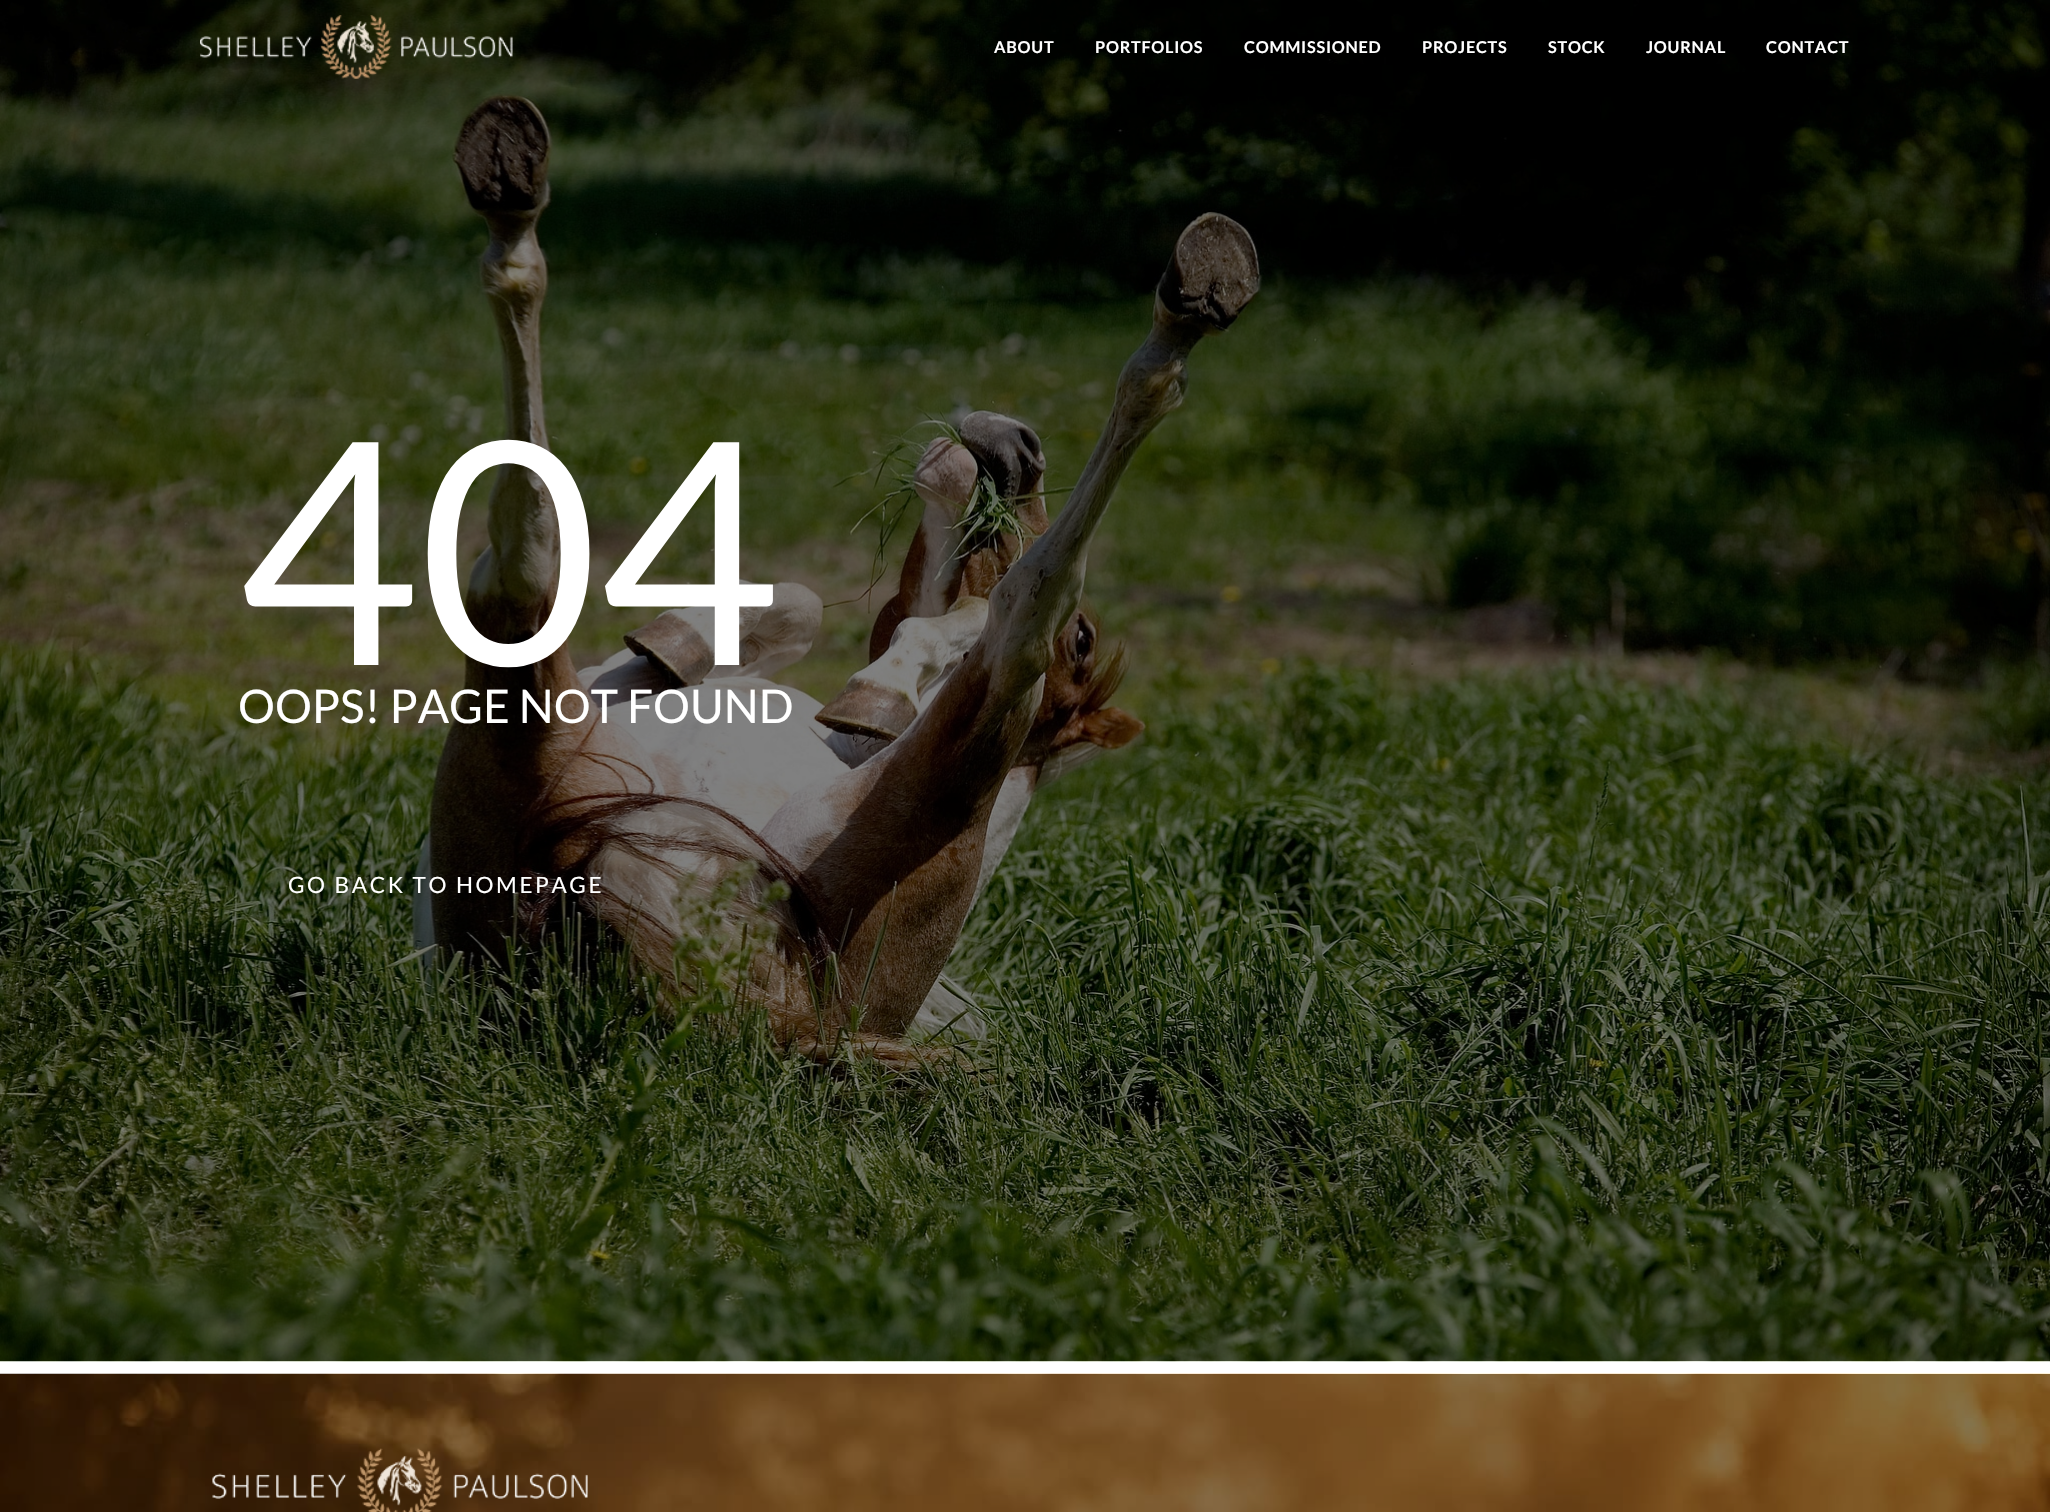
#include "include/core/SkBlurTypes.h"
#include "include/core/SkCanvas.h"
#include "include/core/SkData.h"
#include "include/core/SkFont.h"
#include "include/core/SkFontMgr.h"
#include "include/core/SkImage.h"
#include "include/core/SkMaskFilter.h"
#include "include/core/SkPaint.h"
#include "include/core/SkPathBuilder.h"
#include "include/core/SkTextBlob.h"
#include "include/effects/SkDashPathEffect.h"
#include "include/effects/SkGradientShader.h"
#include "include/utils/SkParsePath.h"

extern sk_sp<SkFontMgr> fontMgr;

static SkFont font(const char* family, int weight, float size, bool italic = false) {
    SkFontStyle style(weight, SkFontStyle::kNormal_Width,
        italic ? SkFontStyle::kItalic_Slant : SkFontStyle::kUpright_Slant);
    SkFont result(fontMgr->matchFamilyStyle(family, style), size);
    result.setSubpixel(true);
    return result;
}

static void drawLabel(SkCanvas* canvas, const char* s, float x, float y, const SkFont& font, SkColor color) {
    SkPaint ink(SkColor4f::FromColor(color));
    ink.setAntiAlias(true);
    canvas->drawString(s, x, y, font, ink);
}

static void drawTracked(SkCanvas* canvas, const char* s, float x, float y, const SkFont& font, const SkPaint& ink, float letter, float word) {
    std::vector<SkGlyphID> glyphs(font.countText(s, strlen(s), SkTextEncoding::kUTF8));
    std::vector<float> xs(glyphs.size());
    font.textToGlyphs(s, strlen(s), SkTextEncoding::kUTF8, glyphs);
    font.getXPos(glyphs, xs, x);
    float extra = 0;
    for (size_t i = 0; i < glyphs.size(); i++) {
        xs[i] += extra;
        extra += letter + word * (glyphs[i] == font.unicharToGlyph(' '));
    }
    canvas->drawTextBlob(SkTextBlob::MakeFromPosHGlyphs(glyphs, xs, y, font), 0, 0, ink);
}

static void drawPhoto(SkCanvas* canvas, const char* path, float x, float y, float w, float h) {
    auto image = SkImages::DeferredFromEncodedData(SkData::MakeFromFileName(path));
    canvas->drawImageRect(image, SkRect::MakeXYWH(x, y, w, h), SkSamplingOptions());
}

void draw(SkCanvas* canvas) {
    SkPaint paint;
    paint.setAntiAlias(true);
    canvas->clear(0xFFFFFFFF);
    drawPhoto(canvas, "assets/img2.png", 0, 0, 2050, 1362);
    drawPhoto(canvas, "assets/img1.png", 200, 15, 313, 64);
    SkFont font1 = font("Lato", 700, 16.25f);
    paint.setColor(0xFFFFFFFF);
    drawTracked(canvas, "ABOUT", 994, 53, font1, paint, 0.75f, 0);
    drawTracked(canvas, "PORTFOLIOS", 1095, 53, font1, paint, 0.75f, 0);
    drawTracked(canvas, "COMMISSIONED", 1244, 53, font1, paint, 0.75f, 0);
    drawTracked(canvas, "PROJECTS", 1422, 53, font1, paint, 0.75f, 0);
    drawTracked(canvas, "STOCK", 1548, 53, font1, paint, 0.75f, 0);
    drawTracked(canvas, "JOURNAL", 1646, 53, font1, paint, 0.75f, 0);
    drawTracked(canvas, "CONTACT", 1766, 53, font1, paint, 0.75f, 0);
    SkFont font2 = font("Lato", 400, 311);
    drawLabel(canvas, "404", 238, 665, font2, 0xFFFFFFFF);
    SkFont font3 = font("Lato", 400, 46.25f);
    drawLabel(canvas, "OOPS! PAGE NOT FOUND", 238, 723, font3, 0xFFFFFFFF);
    SkFont font4 = font("Lato", 400, 22.5f);
    drawTracked(canvas, "GO BACK TO HOMEPAGE", 288, 893, font4, paint, 2.6f, 0);
    drawPhoto(canvas, "assets/img3.png", 0, 1373, 2050, 139);
    drawPhoto(canvas, "assets/img4.png", 212, 1448, 376, 64);
}
